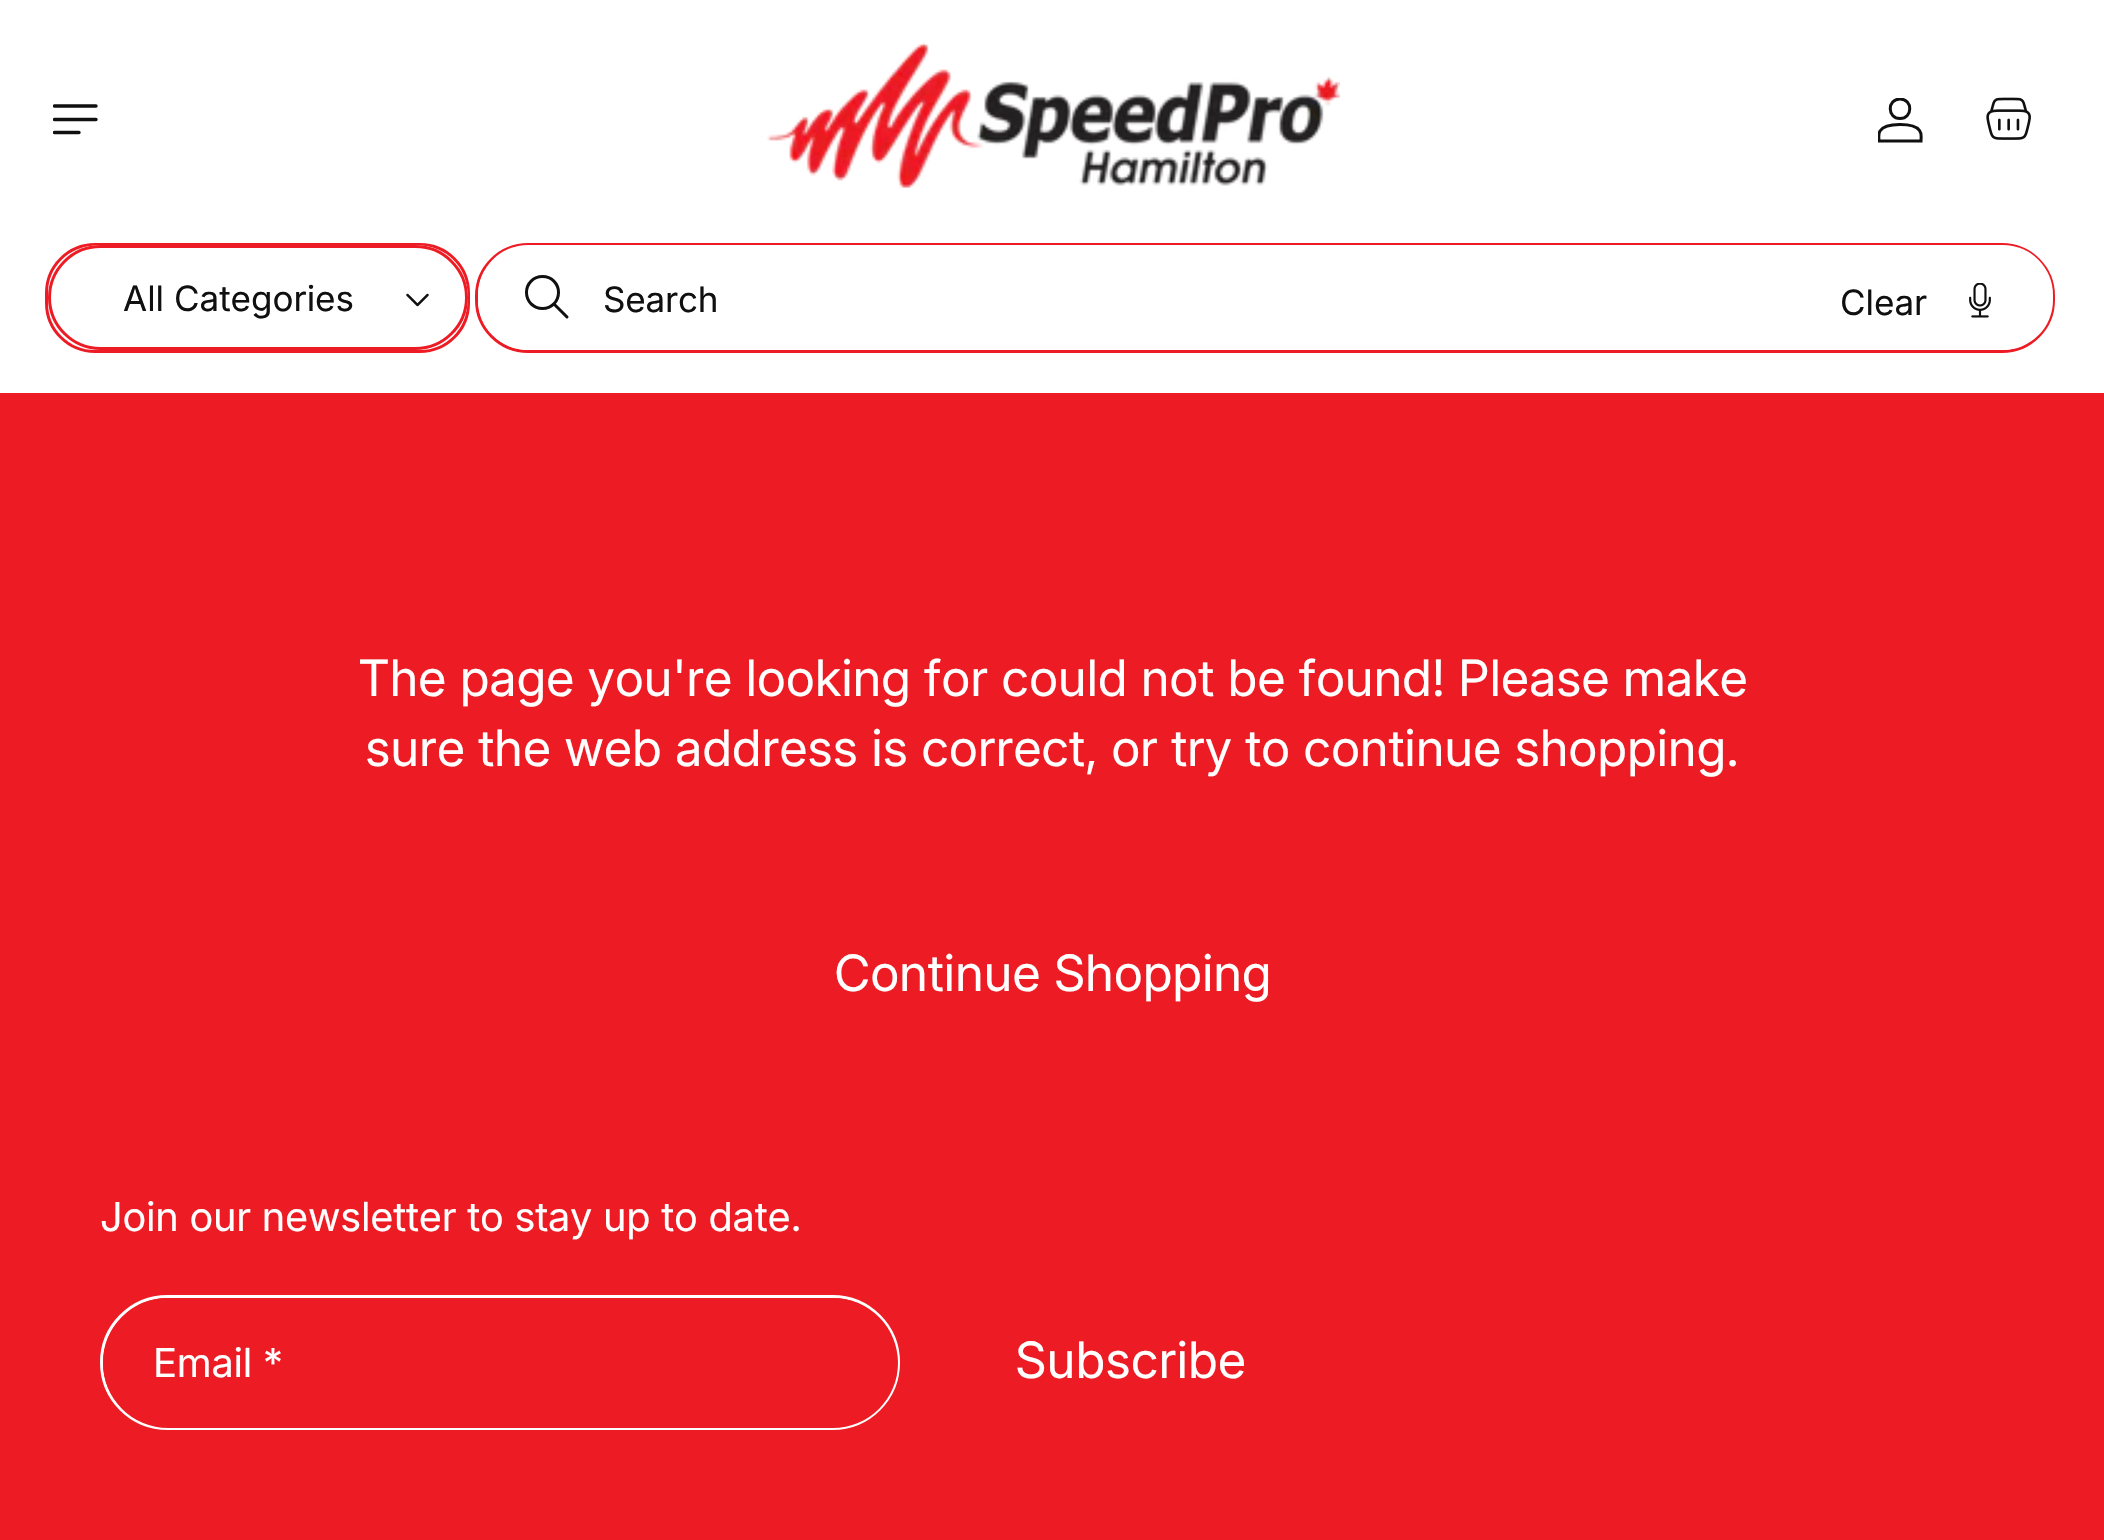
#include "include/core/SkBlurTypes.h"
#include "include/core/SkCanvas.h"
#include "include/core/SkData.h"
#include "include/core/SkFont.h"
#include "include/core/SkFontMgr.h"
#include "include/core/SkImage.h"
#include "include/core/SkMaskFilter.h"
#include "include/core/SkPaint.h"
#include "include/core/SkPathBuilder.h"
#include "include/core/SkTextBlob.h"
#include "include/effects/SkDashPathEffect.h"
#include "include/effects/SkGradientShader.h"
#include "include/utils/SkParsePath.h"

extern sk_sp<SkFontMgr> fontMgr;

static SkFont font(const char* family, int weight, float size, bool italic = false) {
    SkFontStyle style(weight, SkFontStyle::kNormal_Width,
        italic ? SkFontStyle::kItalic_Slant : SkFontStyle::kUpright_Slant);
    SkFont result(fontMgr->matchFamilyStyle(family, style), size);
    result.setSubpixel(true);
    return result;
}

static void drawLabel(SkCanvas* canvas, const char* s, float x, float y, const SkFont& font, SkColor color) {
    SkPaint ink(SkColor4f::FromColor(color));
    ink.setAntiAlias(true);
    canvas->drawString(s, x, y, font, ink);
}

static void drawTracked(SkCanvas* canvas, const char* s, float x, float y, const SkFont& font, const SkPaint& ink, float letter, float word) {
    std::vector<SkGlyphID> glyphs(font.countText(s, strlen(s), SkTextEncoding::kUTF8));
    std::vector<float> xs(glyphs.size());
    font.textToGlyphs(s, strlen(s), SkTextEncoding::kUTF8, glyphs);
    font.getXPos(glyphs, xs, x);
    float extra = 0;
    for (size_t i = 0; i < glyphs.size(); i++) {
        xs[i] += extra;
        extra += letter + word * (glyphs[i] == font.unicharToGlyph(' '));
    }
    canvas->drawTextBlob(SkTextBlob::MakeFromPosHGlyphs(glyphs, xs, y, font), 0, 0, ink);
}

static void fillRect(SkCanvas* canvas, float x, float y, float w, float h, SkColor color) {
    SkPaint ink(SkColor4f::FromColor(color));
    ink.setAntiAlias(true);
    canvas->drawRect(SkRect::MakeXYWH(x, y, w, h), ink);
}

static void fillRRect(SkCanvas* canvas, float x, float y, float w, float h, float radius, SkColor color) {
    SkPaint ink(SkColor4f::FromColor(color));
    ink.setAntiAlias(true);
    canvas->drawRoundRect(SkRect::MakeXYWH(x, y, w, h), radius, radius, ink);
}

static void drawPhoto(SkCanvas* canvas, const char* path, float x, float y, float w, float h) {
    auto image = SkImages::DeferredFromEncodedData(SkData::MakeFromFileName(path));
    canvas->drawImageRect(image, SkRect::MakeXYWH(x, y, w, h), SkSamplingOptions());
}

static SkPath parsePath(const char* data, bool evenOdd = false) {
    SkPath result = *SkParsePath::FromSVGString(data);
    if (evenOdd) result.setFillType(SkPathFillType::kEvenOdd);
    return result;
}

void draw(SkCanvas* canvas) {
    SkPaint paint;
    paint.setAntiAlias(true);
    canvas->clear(0xFFFFFFFF);
    canvas->save();
    canvas->clipRect(SkRect::MakeXYWH(53, 98, 45, 45));
    paint.setStroke(true);
    paint.setStrokeWidth(3.4f);
    paint.setStrokeCap(SkPaint::kRound_Cap);
    paint.setColor(0xFF101010);
    canvas->drawPath(parsePath("M79 132.5H54.5M96 119.5H54.5M96 106H54.5"), paint);
    canvas->restore();
    drawPhoto(canvas, "assets/img1.png", 767, 42, 573, 146);
    canvas->save();
    canvas->clipRect(SkRect::MakeXYWH(1878, 98, 45, 45));
    paint.setStrokeWidth(3);
    paint.setStrokeCap(SkPaint::kButt_Cap);
    canvas->drawPath(parsePath("M1900 118.5C1887 118.5 1887 99 1900 99C1913 99 1913 118.5 1900 118.5ZM1879 141C1879 138 1878 134 1880 131C1885.5 122.5 1914 122.5 1919.5 130.5C1922 133.5 1921 137.5 1921 141Z"), paint);
    canvas->restore();
    drawPhoto(canvas, "assets/img2.png", 1986, 97, 45, 43);
    paint.setColor(0xFFED1C24);
    canvas->drawRoundRect(SkRect::MakeXYWH(46.5f, 244.5f, 422, 107), 48.5f, 48.5f, paint);
    fillRRect(canvas, 48, 245, 420, 105, 52.5f, 0xFFFFFFFF);
    drawPhoto(canvas, "assets/img3.png", 406, 293, 23, 14);
    canvas->drawRoundRect(SkRect::MakeXYWH(49.5f, 246.5f, 417, 102), 51, 51, paint);
    SkFont font1 = font("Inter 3", 400, 35);
    drawLabel(canvas, "All Categories", 123, 311, font1, 0xFF101010);
    canvas->drawRoundRect(SkRect::MakeXYWH(476.5f, 244.5f, 1577, 107), 51.5f, 51.5f, paint);
    fillRRect(canvas, 478, 245, 1575, 105, 50, 0xFFFFFFFF);
    paint.setStrokeCap(SkPaint::kRound_Cap);
    paint.setStrokeJoin(SkPaint::kRound_Join);
    paint.setColor(0xFF101010);
    canvas->drawPath(parsePath("M558.5 292.5C558.5 301.5 551.5 308.5 542.5 308.5C533.5 308.5 526.5 301.5 526.5 292.5C526.5 283.5 533.5 276.5 542.5 276.5C551.5 276.5 558.5 283.5 558.5 292.5ZM567 317L555 305"), paint);
    paint.setStroke(false);
    drawTracked(canvas, "Search", 603, 312, font1, paint, -0.2f, 0);
    drawLabel(canvas, "Clear", 1840, 315, font1, 0xFF101010);
    drawPhoto(canvas, "assets/img4.png", 1969, 283, 22, 35);
    fillRect(canvas, 0, 393, 2104, 1147, 0xFFED1C24);
    SkFont font2 = font("Inter", 400, 50);
    paint.setColor(0xFFFFFFFF);
    drawTracked(canvas, "The page you're looking for could not be found! Please make", 358, 696, font2, paint, -0.2f, 0);
    drawTracked(canvas, "sure the web address is correct, or try to continue shopping.", 365, 766, font2, paint, -0.2f, 0);
    drawTracked(canvas, "Continue Shopping", 834, 991, font2, paint, -0.2f, 0);
    SkFont font3 = font("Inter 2", 400, 40);
    drawTracked(canvas, "Join our newsletter to stay up to date.", 100, 1231, font3, paint, -0.2f, 0);
    paint.setStroke(true);
    paint.setStrokeCap(SkPaint::kButt_Cap);
    paint.setStrokeJoin(SkPaint::kMiter_Join);
    canvas->drawRoundRect(SkRect::MakeXYWH(101.5f, 1296.5f, 797, 132), 66, 66, paint);
    fillRRect(canvas, 103, 1298, 795, 130, 65, 0xFFED1C24);
    drawLabel(canvas, "Subscribe", 1015, 1378, font2, 0xFFFFFFFF);
    paint.setStroke(false);
    drawTracked(canvas, "Email *", 153, 1377, font3, paint, -0.2f, 0);
}
